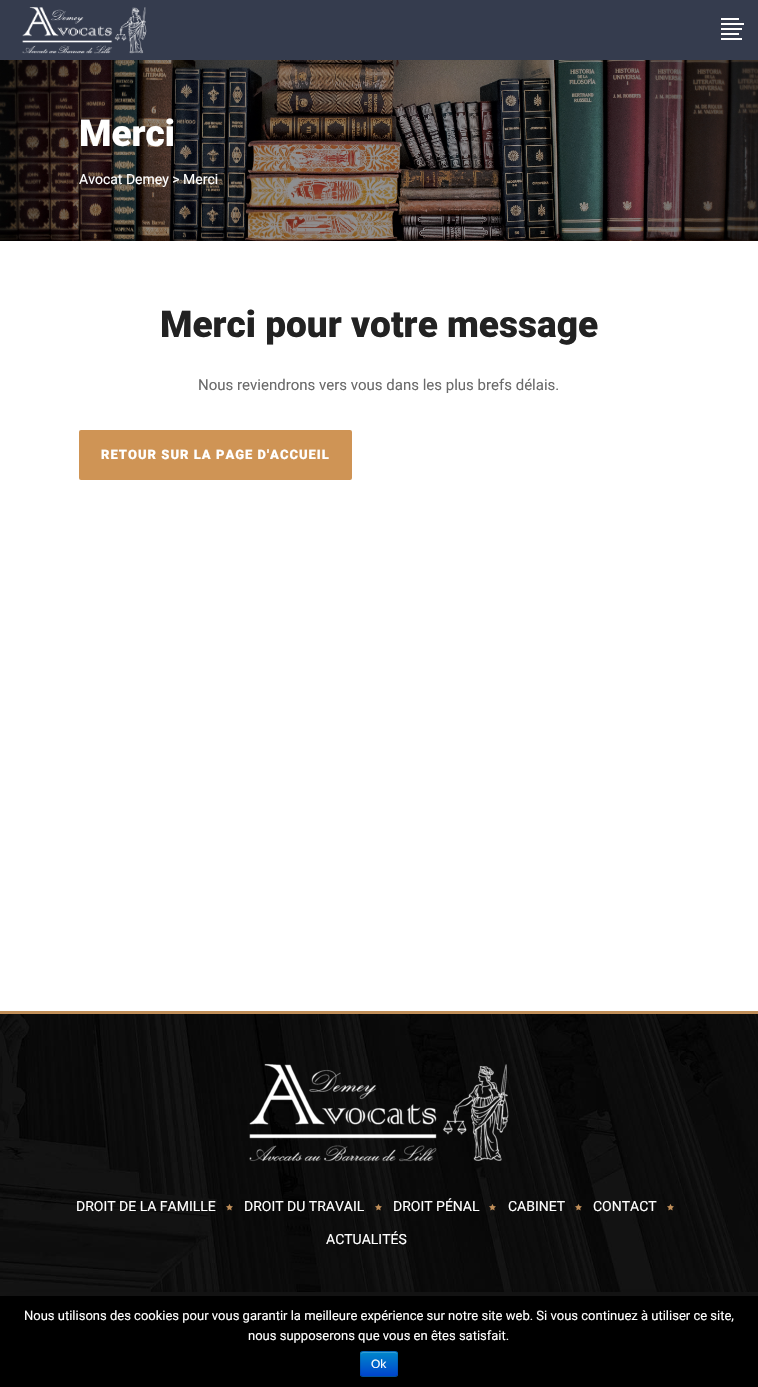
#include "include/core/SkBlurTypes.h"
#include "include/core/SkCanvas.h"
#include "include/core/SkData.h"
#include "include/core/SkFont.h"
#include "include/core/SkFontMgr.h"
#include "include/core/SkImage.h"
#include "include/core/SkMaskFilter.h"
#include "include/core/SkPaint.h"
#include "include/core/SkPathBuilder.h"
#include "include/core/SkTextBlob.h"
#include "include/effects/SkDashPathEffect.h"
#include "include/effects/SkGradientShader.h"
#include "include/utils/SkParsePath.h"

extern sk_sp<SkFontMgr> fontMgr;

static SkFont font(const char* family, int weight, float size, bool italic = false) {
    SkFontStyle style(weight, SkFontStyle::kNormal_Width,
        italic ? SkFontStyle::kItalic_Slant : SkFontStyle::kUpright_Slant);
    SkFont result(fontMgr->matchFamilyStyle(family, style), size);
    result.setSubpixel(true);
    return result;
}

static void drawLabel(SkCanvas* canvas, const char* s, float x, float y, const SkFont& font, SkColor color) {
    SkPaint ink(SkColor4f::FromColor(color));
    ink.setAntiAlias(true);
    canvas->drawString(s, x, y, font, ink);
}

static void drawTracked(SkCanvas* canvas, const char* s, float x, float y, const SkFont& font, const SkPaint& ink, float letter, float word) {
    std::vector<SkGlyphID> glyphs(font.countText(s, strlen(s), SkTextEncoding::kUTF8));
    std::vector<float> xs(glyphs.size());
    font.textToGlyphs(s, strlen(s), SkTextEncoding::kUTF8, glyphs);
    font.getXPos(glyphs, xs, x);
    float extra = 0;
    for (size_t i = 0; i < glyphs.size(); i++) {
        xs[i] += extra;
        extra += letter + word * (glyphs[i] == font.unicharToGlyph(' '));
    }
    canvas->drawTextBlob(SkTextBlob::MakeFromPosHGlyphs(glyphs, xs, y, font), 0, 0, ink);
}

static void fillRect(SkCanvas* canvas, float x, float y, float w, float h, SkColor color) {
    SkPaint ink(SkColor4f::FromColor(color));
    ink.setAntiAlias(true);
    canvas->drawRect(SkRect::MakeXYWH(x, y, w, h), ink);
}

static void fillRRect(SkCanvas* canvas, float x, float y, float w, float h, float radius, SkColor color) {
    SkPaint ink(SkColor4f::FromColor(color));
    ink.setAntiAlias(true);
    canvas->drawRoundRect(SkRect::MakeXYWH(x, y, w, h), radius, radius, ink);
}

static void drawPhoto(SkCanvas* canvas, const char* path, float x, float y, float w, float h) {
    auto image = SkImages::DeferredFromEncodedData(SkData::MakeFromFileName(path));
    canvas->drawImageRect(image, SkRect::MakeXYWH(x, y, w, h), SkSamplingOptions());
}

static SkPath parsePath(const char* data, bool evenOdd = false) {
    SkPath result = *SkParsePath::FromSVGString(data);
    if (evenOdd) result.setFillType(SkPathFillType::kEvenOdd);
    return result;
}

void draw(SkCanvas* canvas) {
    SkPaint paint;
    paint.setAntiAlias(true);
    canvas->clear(0xFFFFFFFF);
    fillRect(canvas, 0, 0, 758, 60, 0xFF353C4E);
    drawPhoto(canvas, "assets/img1.png", 22, 7, 125, 47);
    fillRect(canvas, 721, 18, 18, 2, 0xFFFFFFFF);
    fillRect(canvas, 721, 23, 23, 2, 0xFFFFFFFF);
    fillRect(canvas, 721, 28, 21, 2, 0xFFFFFFFF);
    fillRect(canvas, 721, 33, 18, 2, 0xFFFFFFFF);
    fillRect(canvas, 721, 38, 21, 2, 0xFFFFFFFF);
    drawPhoto(canvas, "assets/img2.png", 0, 60, 758, 181);
    SkFont font1 = font("Roboto", 900, 37);
    drawLabel(canvas, "Merci", 79, 146, font1, 0xFFFFFFFF);
    SkFont font2 = font("Roboto", 400, 14);
    drawLabel(canvas, "Avocat Demey > Merci", 79, 184, font2, 0xFFFFFFFF);
    drawLabel(canvas, "Merci pour votre message", 160, 337, font1, 0xFF222222);
    SkFont font3 = font("Roboto", 400, 15);
    drawLabel(canvas, "Nous reviendrons vers vous dans les plus brefs délais.", 198, 390, font3, 0xFF6A6A6A);
    fillRRect(canvas, 79, 430, 273, 50, 2, 0xFFCF9455);
    SkFont font4 = font("Roboto", 900, 13);
    paint.setColor(0xFFFFFFFF);
    drawTracked(canvas, "RETOUR SUR LA PAGE D'ACCUEIL", 101, 459, font4, paint, 1, 0);
    drawPhoto(canvas, "assets/img3.png", 0, 1014, 758, 278);
    fillRect(canvas, 0, 1011, 758, 3, 0xFFC18F59);
    drawPhoto(canvas, "assets/img4.png", 249, 1063, 260, 99);
    drawLabel(canvas, "DROIT DE LA FAMILLE", 76, 1211, font2, 0xFFFFFFFF);
    drawPhoto(canvas, "assets/img5.png", 226, 1204, 7, 7);
    drawLabel(canvas, "DROIT DU TRAVAIL", 244, 1211, font2, 0xFFFFFFFF);
    drawPhoto(canvas, "assets/img6.png", 375, 1204, 7, 7);
    drawLabel(canvas, "DROIT PÉNAL", 393, 1211, font2, 0xFFFFFFFF);
    drawPhoto(canvas, "assets/img7.png", 489, 1204, 7, 7);
    drawLabel(canvas, "CABINET", 508, 1211, font2, 0xFFFFFFFF);
    drawPhoto(canvas, "assets/img8.png", 575, 1204, 7, 7);
    drawLabel(canvas, "CONTACT", 593, 1211, font2, 0xFFFFFFFF);
    drawPhoto(canvas, "assets/img9.png", 667, 1204, 7, 7);
    drawLabel(canvas, "ACTUALITÉS", 326, 1244, font2, 0xFFFFFFFF);
    fillRect(canvas, 0, 1292, 758, 4, 0xFF141414);
    paint.setColor(0x80000000);
    paint.setMaskFilter(SkMaskFilter::MakeBlur(kNormal_SkBlurStyle, 25));
    canvas->drawRect(SkRect::MakeXYWH(0, 1328, 758, 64), paint);
    paint.setMaskFilter(nullptr);
    fillRect(canvas, 0, 1296, 758, 91, 0xFF000000);
    SkFont font5 = font("Roboto", 400, 13);
    drawLabel(canvas, "Nous utilisons des cookies pour vous garantir la meilleure expérience sur notre site web. Si vous continuez à utiliser ce site,", 24, 1320, font5, 0xFFFFFFFF);
    drawLabel(canvas, "nous supposerons que vous en êtes satisfait.", 248, 1340, font5, 0xFFFFFFFF);
    fillRRect(canvas, 360, 1351, 38, 26, 3, 0xFF006DCC);
    canvas->save();
    canvas->clipPath(parsePath("M363 1351H395C396.5 1351 398 1352.5 398 1354V1374C398 1375.5 396.5 1377 395 1377H363C361.5 1377 360 1375.5 360 1374V1354C360 1352.5 361.5 1351 363 1351Z"), true);
    {
        const SkColor colors[] = {0xFF0088CC, 0xFF0044CC};
        const float stops[] = {0, 1};
        const SkPoint ends[] = {{379, 1352}, {379, 1376}};
        paint.setShader(SkGradientShader::MakeLinear(ends, colors, stops, 2, SkTileMode::kClamp));
        paint.setAlpha(255);
    }
    canvas->drawRect(SkRect::MakeXYWH(360, 1352, 38, 24), paint);
    canvas->restore();
    paint.setShader(nullptr);
    paint.setColor(0x33FFFFFF);
    canvas->drawPath(parsePath("M363 1353H395C396 1353 397 1354 397 1355C397 1350.5 393.5 1352 389.5 1352H368.5C364.5 1352 361 1350.5 361 1355C361 1354 362 1353 363 1353Z"), paint);
    paint.setStroke(true);
    paint.setStrokeWidth(1);
    paint.setColor(0x40000000);
    canvas->drawPath(parsePath("M397 1376C396.5 1376 395.5 1376.5 395 1376.5H363C362.5 1376.5 361.5 1376 361 1376"), paint);
    paint.setColor(0x1A000000);
    canvas->drawPath(parsePath("M361 1376C361 1375.5 360.5 1374.5 360.5 1374V1354C360.5 1353.5 361 1352.5 361 1352C361.5 1352 362.5 1351.5 363 1351.5H395C395.5 1351.5 396.5 1352 397 1352C397 1352.5 397.5 1353.5 397.5 1354V1374C397.5 1374.5 397 1375.5 397 1376"), paint);
    SkFont font6 = font("Liberation Sans", 400, 12);
    drawLabel(canvas, "Ok", 371, 1368, font6, 0xFFFFFFFF);
}
